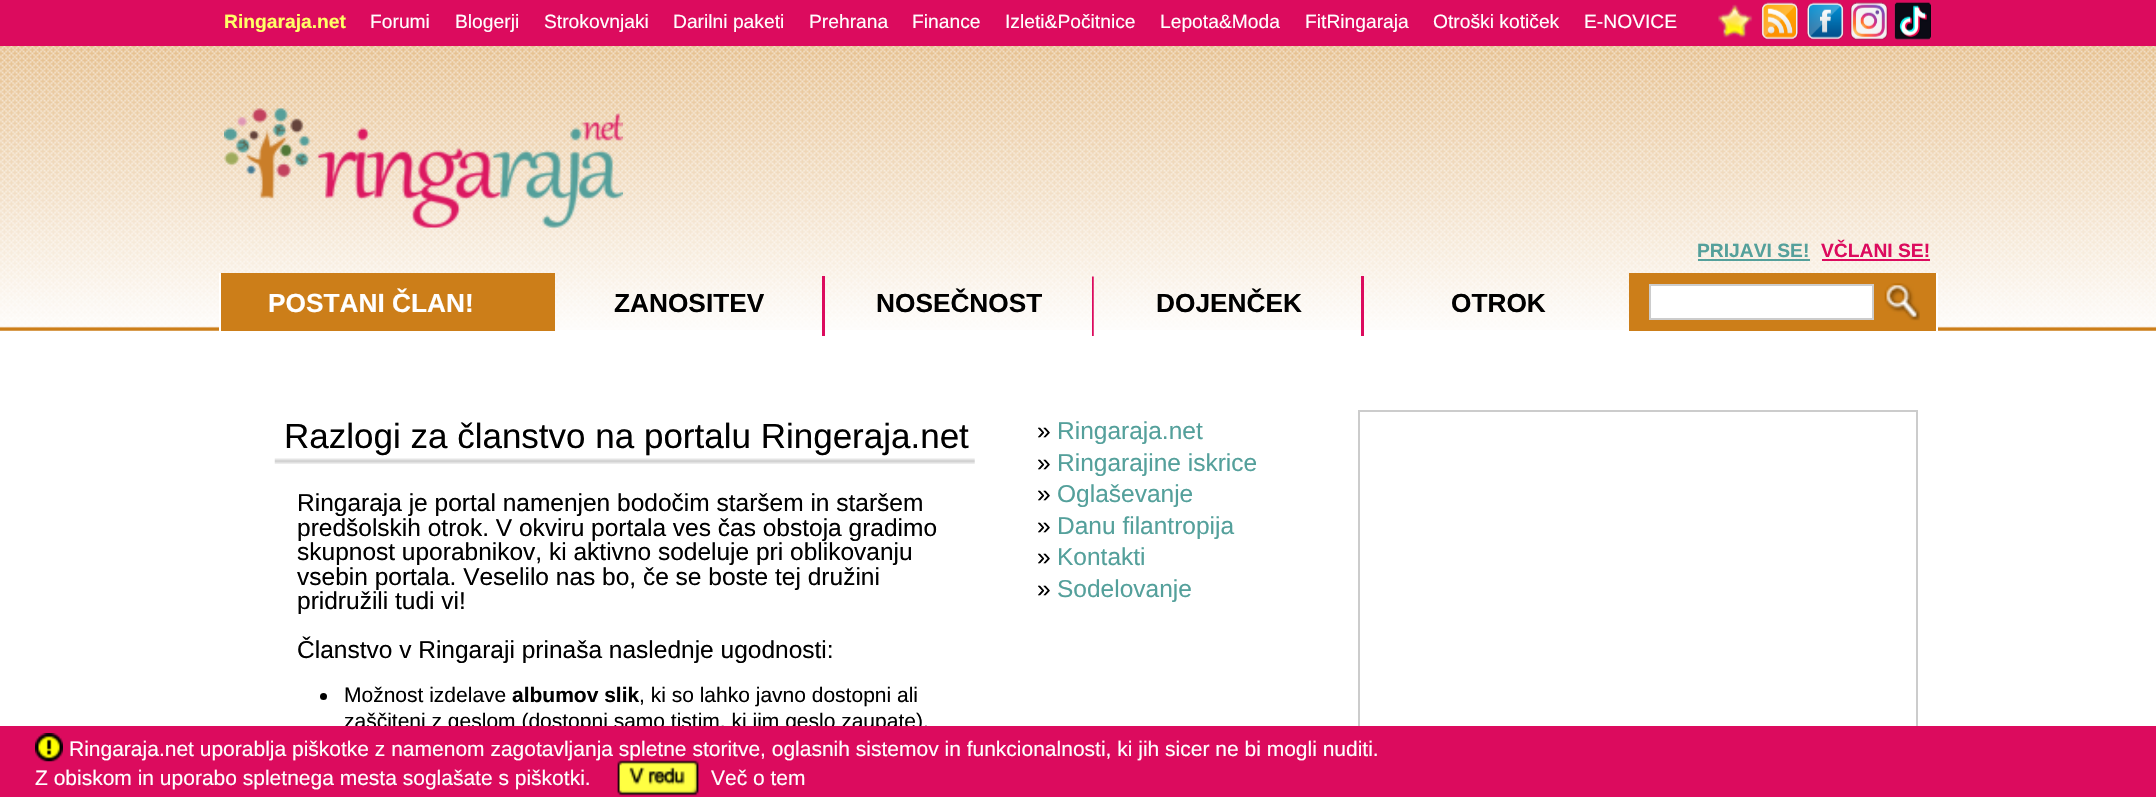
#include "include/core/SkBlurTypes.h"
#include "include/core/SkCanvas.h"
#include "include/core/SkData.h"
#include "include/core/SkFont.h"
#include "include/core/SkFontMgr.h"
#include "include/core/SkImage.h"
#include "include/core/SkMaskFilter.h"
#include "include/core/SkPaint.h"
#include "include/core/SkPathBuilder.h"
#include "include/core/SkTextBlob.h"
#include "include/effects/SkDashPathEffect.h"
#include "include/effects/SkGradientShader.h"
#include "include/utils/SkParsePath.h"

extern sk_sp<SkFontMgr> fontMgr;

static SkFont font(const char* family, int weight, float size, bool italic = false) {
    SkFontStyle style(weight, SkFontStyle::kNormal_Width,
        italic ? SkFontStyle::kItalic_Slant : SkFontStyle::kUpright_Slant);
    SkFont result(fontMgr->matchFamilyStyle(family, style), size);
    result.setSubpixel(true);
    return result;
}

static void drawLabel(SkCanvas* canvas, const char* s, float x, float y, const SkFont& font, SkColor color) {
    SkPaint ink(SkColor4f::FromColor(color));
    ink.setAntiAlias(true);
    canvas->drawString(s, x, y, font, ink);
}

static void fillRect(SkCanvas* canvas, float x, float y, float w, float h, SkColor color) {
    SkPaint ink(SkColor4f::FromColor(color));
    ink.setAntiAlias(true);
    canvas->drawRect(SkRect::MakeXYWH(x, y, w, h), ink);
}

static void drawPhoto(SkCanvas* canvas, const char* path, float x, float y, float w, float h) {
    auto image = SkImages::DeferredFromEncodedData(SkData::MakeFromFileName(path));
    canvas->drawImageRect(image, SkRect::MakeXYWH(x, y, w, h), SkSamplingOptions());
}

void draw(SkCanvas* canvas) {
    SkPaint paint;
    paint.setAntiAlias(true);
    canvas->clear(0xFFFFFFFF);
    drawPhoto(canvas, "assets/img1.png", 0, 46, 2156, 284);
    fillRect(canvas, 0, 0, 2156, 46, 0xFFDC0B5E);
    SkFont font1 = font("Liberation Sans", 700, 19.25f);
    drawLabel(canvas, "Ringaraja.net", 224, 28, font1, 0xFFFFFF66);
    SkFont font2 = font("Liberation Sans", 400, 19.25f);
    drawLabel(canvas, "Forumi", 370, 28, font2, 0xFFFFFFFF);
    drawLabel(canvas, "Blogerji", 455, 28, font2, 0xFFFFFFFF);
    drawLabel(canvas, "Strokovnjaki", 544, 28, font2, 0xFFFFFFFF);
    drawLabel(canvas, "Darilni paketi", 673, 28, font2, 0xFFFFFFFF);
    drawLabel(canvas, "Prehrana", 809, 28, font2, 0xFFFFFFFF);
    drawLabel(canvas, "Finance", 912, 28, font2, 0xFFFFFFFF);
    drawLabel(canvas, "Izleti&Počitnice", 1005, 28, font2, 0xFFFFFFFF);
    drawLabel(canvas, "Lepota&Moda", 1160, 28, font2, 0xFFFFFFFF);
    drawLabel(canvas, "FitRingaraja", 1305, 28, font2, 0xFFFFFFFF);
    drawLabel(canvas, "Otroški kotiček", 1433, 28, font2, 0xFFFFFFFF);
    drawLabel(canvas, "E-NOVICE", 1584, 28, font2, 0xFFFFFFFF);
    drawPhoto(canvas, "assets/img2.png", 1718, 4, 35, 34);
    drawPhoto(canvas, "assets/img3.png", 1761, 2, 38, 38);
    drawPhoto(canvas, "assets/img4.png", 1806, 2, 38, 38);
    drawPhoto(canvas, "assets/img5.png", 1850, 2, 38, 38);
    drawPhoto(canvas, "assets/img6.png", 1894, 2, 38, 38);
    drawPhoto(canvas, "assets/img7.png", 224, 108, 399, 120);
    drawLabel(canvas, "PRIJAVI SE!", 1697, 257, font1, 0xFF54A09B);
    fillRect(canvas, 1698, 259, 112, 2, 0xFF54A09B);
    drawLabel(canvas, "VČLANI SE!", 1821, 257, font1, 0xFFDC0B5E);
    fillRect(canvas, 1822, 259, 108, 2, 0xFFDC0B5E);
    fillRect(canvas, 221, 273, 334, 58, 0xFFCC7E19);
    fillRect(canvas, 219, 273, 2, 58, 0xFFFFFFFF);
    SkFont font3 = font("Liberation Sans", 700, 26.25f);
    drawLabel(canvas, "POSTANI ČLAN!", 268, 312, font3, 0xFFFFFFFF);
    drawLabel(canvas, "ZANOSITEV", 614, 312, font3, 0xFF000000);
    fillRect(canvas, 822, 276, 3, 60, 0xFFDC0B5E);
    drawLabel(canvas, "NOSEČNOST", 876, 312, font3, 0xFF000000);
    drawPhoto(canvas, "assets/img8.png", 1092, 276, 2, 60);
    drawLabel(canvas, "DOJENČEK", 1156, 312, font3, 0xFF000000);
    fillRect(canvas, 1361, 276, 3, 60, 0xFFDC0B5E);
    drawLabel(canvas, "OTROK", 1451, 312, font3, 0xFF000000);
    fillRect(canvas, 1629, 273, 307, 58, 0xFFCC7E19);
    fillRect(canvas, 1936, 273, 2, 58, 0xFFFFFFFF);
    paint.setColor(0xFFFFFFFF);
    canvas->drawRect(SkRect::MakeXYWH(1650, 285, 223, 34), paint);
    paint.setStroke(true);
    paint.setStrokeWidth(2);
    paint.setColor(0xFFCCCCCC);
    canvas->drawRect(SkRect::MakeXYWH(1650, 285, 223, 34), paint);
    drawPhoto(canvas, "assets/img9.png", 1884, 283, 36, 38);
    drawPhoto(canvas, "assets/img10.png", 0, 326, 219, 5);
    drawPhoto(canvas, "assets/img11.png", 1938, 326, 218, 5);
    drawPhoto(canvas, "assets/img12.png", 274, 458, 701, 6);
    SkFont font4 = font("Liberation Sans", 400, 35);
    drawLabel(canvas, "Razlogi za članstvo na portalu Ringeraja.net", 284, 448, font4, 0xFF000000);
    SkFont font5 = font("Liberation Sans", 400, 24.5f);
    drawLabel(canvas, "Ringaraja je portal namenjen bodočim staršem in staršem", 297, 511, font5, 0xFF000000);
    drawLabel(canvas, "predšolskih otrok. V okviru portala ves čas obstoja gradimo", 297, 536, font5, 0xFF000000);
    drawLabel(canvas, "skupnost uporabnikov, ki aktivno sodeluje pri oblikovanju", 297, 560, font5, 0xFF000000);
    drawLabel(canvas, "vsebin portala. Veselilo nas bo, če se boste tej družini", 297, 585, font5, 0xFF000000);
    drawLabel(canvas, "pridružili tudi vi!", 297, 609, font5, 0xFF000000);
    drawLabel(canvas, "Članstvo v Ringaraji prinaša naslednje ugodnosti:", 297, 658, font5, 0xFF000000);
    paint.setStroke(false);
    paint.setColor(0xFF000000);
    canvas->drawCircle(323.5f, 696.5f, 3.5f, paint);
    SkFont font6 = font("Liberation Sans", 400, 21);
    drawLabel(canvas, "Možnost izdelave", 344, 702, font6, 0xFF000000);
    SkFont font7 = font("Liberation Sans", 700, 21);
    drawLabel(canvas, "albumov slik", 512, 702, font7, 0xFF000000);
    drawLabel(canvas, ", ki so lahko javno dostopni ali", 639, 702, font6, 0xFF000000);
    drawLabel(canvas, "zaščiteni z geslom (dostopni samo tistim, ki jim geslo zaupate).", 344, 728, font6, 0xFF000000);
    drawLabel(canvas, "»", 1037, 439, font5, 0xFF000000);
    drawLabel(canvas, "Ringaraja.net", 1057, 439, font5, 0xFF54A09B);
    drawLabel(canvas, "»", 1037, 471, font5, 0xFF000000);
    drawLabel(canvas, "Ringarajine iskrice", 1057, 471, font5, 0xFF54A09B);
    drawLabel(canvas, "»", 1037, 502, font5, 0xFF000000);
    drawLabel(canvas, "Oglaševanje", 1057, 502, font5, 0xFF54A09B);
    drawLabel(canvas, "»", 1037, 534, font5, 0xFF000000);
    drawLabel(canvas, "Danu filantropija", 1057, 534, font5, 0xFF54A09B);
    drawLabel(canvas, "»", 1037, 565, font5, 0xFF000000);
    drawLabel(canvas, "Kontakti", 1057, 565, font5, 0xFF54A09B);
    drawLabel(canvas, "»", 1037, 597, font5, 0xFF000000);
    drawLabel(canvas, "Sodelovanje", 1057, 597, font5, 0xFF54A09B);
    paint.setStroke(true);
    paint.setColor(0xFFCCCCCC);
    canvas->drawRect(SkRect::MakeXYWH(1359, 411, 558, 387), paint);
    fillRect(canvas, 0, 726, 2156, 71, 0xFFDC0B5E);
    drawPhoto(canvas, "assets/img13.png", 35, 733, 28, 29);
    drawLabel(canvas, "Ringaraja.net uporablja piškotke z namenom zagotavljanja spletne storitve, oglasnih sistemov in funkcionalnosti, ki jih sicer ne bi mogli nuditi.", 69, 756, font6, 0xFFFFFFFF);
    drawLabel(canvas, "Z obiskom in uporabo spletnega mesta soglašate s piškotki.", 35, 785, font6, 0xFFFFFFFF);
    drawPhoto(canvas, "assets/img14.png", 617, 760, 82, 36);
    drawLabel(canvas, "Več o tem", 711, 785, font6, 0xFFFFFFFF);
}
